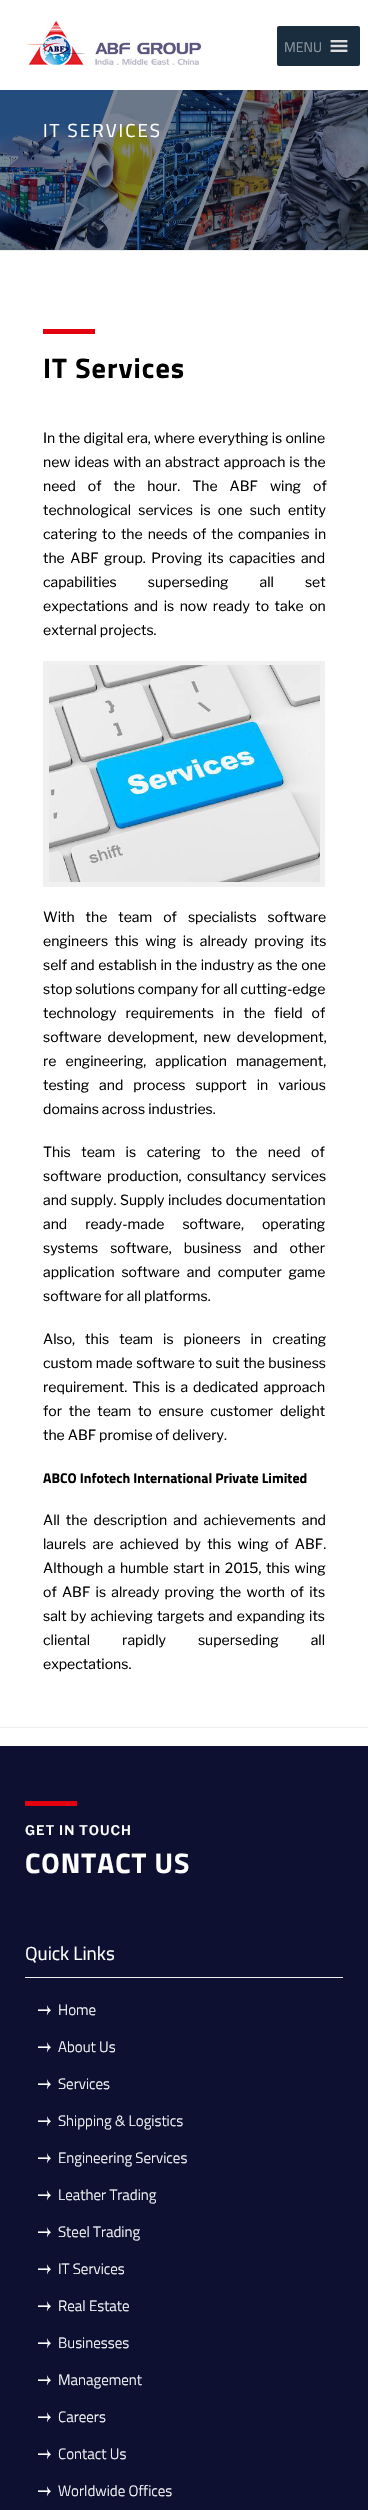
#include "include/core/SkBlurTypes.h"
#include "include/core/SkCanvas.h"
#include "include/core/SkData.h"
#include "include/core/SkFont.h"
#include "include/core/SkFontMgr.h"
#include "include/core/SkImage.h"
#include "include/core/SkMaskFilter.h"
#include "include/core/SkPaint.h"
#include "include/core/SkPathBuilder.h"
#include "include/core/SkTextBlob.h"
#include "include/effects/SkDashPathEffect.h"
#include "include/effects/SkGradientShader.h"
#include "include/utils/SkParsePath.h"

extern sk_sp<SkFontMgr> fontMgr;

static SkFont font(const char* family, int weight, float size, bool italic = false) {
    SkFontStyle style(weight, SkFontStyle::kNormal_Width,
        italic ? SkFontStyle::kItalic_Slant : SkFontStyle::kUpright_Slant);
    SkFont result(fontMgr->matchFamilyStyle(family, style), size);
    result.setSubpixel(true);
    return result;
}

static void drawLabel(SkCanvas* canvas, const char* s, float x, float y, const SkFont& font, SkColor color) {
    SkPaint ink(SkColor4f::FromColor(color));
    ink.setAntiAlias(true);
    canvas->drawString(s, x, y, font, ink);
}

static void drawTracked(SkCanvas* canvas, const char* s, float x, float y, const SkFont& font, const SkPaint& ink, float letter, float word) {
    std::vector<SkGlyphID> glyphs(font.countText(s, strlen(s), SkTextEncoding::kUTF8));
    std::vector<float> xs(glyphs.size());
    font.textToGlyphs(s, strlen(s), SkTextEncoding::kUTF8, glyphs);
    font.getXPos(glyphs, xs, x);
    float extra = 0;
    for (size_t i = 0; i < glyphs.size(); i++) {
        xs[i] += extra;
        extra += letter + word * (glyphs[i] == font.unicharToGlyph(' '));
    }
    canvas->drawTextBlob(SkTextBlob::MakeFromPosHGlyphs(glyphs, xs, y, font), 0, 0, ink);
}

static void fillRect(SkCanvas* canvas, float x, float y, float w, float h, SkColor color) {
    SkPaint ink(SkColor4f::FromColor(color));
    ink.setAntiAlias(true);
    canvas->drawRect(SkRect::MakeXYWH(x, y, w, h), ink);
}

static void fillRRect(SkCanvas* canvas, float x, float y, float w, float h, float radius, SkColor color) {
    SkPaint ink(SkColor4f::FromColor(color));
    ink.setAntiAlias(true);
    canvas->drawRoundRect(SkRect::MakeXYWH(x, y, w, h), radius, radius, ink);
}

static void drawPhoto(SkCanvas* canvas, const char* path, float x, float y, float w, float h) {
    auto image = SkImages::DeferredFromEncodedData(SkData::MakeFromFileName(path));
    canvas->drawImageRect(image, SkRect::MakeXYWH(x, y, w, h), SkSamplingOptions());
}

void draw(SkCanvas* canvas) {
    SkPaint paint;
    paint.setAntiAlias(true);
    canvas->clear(0xFFFFFFFF);
    drawPhoto(canvas, "assets/img1.png", 26, 20, 177, 46);
    fillRRect(canvas, 277, 26, 83, 40, 2, 0xFF192D3F);
    SkFont font1 = font("Titillium Web", 400, 14);
    drawLabel(canvas, "MENU", 284, 52, font1, 0xFF8C969F);
    drawPhoto(canvas, "assets/img2.png", 330, 40, 18, 12);
    fillRect(canvas, 0, 250, 368, 1, 0xFFEEEEEE);
    drawPhoto(canvas, "assets/img3.png", 0, 90, 368, 160);
    SkFont font2 = font("Titillium Web", 400, 18.75f);
    paint.setColor(0xFFFFFFFF);
    drawTracked(canvas, "IT SERVICES", 43, 137, font2, paint, 2, 0);
    fillRect(canvas, 43, 329, 52, 5, 0xFFE3010F);
    SkFont font3 = font("Titillium Web", 700, 28.25f);
    paint.setColor(0xFF000000);
    drawTracked(canvas, "IT Services", 43, 378, font3, paint, 1, 0);
    SkFont font4 = font("Libre Franklin", 400, 14);
    drawTracked(canvas, "In the digital era, where everything is online", 43, 443, font4, paint, 0, 0.25f);
    drawTracked(canvas, "new ideas with an abstract approach is the", 43, 467, font4, paint, 0, 1);
    drawTracked(canvas, "need of the hour. The ABF wing of", 43, 491, font4, paint, 0, 9);
    drawTracked(canvas, "technological services is one such entity", 43, 515, font4, paint, 0, 4.25f);
    drawTracked(canvas, "catering to the needs of the companies in", 43, 539, font4, paint, 0, 2);
    drawTracked(canvas, "the ABF group. Proving its capacities and", 43, 563, font4, paint, 0, 2.5f);
    drawTracked(canvas, "capabilities superseding all set", 43, 587, font4, paint, 0, 28);
    drawTracked(canvas, "expectations and is now ready to take on", 43, 611, font4, paint, 0, 2.5f);
    drawLabel(canvas, "external projects.", 43, 635, font4, 0xFF000000);
    drawPhoto(canvas, "assets/img4.png", 43, 661, 282, 226);
    drawTracked(canvas, "With the team of specialists software", 43, 922, font4, paint, 0, 8);
    drawTracked(canvas, "engineers this wing is already proving its", 43, 946, font4, paint, 0, 3.5f);
    drawTracked(canvas, "self and establish in the industry as the one", 43, 970, font4, paint, 0, 0.5f);
    drawLabel(canvas, "stop solutions company for all cutting-edge", 43, 994, font4, 0xFF000000);
    drawTracked(canvas, "technology requirements in the field of", 43, 1018, font4, paint, 0, 6);
    drawTracked(canvas, "software development, new development,", 43, 1042, font4, paint, 0, 3);
    drawTracked(canvas, "re engineering, application management,", 43, 1066, font4, paint, 0, 6);
    drawTracked(canvas, "testing and process support in various", 43, 1090, font4, paint, 0, 7);
    drawLabel(canvas, "domains across industries.", 43, 1114, font4, 0xFF000000);
    drawTracked(canvas, "This team is catering to the need of", 43, 1157, font4, paint, 0, 7.5f);
    drawTracked(canvas, "software production, consultancy services", 43, 1181, font4, paint, 0, 2.5f);
    drawTracked(canvas, "and supply. Supply includes documentation", 43, 1205, font4, paint, 0, 0.5f);
    drawTracked(canvas, "and ready-made software, operating", 43, 1229, font4, paint, 0, 15);
    drawTracked(canvas, "systems software, business and other", 43, 1253, font4, paint, 0, 9);
    drawTracked(canvas, "application software and computer game", 43, 1277, font4, paint, 0, 3.75f);
    drawLabel(canvas, "software for all platforms.", 43, 1301, font4, 0xFF000000);
    drawTracked(canvas, "Also, this team is pioneers in creating", 43, 1344, font4, paint, 0, 7);
    drawTracked(canvas, "custom made software to suit the business", 43, 1368, font4, paint, 0, 0.5f);
    drawTracked(canvas, "requirement. This is a dedicated approach", 43, 1392, font4, paint, 0, 2);
    drawTracked(canvas, "for the team to ensure customer delight", 43, 1416, font4, paint, 0, 3.75f);
    drawLabel(canvas, "the ABF promise of delivery.", 43, 1440, font4, 0xFF000000);
    SkFont font5 = font("Titillium Web", 700, 14);
    drawLabel(canvas, "ABCO Infotech International Private Limited", 43, 1483, font5, 0xFF000000);
    drawTracked(canvas, "All the description and achievements and", 43, 1525, font4, paint, 0, 3);
    drawTracked(canvas, "laurels are achieved by this wing of ABF.", 43, 1549, font4, paint, 0, 3.25f);
    drawTracked(canvas, "Although a humble start in 2015, this wing", 43, 1573, font4, paint, 0, 1.5f);
    drawTracked(canvas, "of ABF is already proving the worth of its", 43, 1597, font4, paint, 0, 2.25f);
    drawTracked(canvas, "salt by achieving targets and expanding its", 43, 1621, font4, paint, 0, 1);
    drawTracked(canvas, "cliental rapidly superseding all", 43, 1645, font4, paint, 0, 29);
    drawLabel(canvas, "expectations.", 43, 1669, font4, 0xFF000000);
    fillRect(canvas, 0, 1727, 368, 1, 0xFFEEEEEE);
    fillRect(canvas, 0, 1746, 368, 764, 0xFF0E1032);
    fillRect(canvas, 25, 1801, 52, 5, 0xFFE3010F);
    SkFont font6 = font("Libre Franklin", 600, 13.25f);
    paint.setColor(0xFFFFFFFF);
    drawTracked(canvas, "GET IN TOUCH", 25, 1835, font6, paint, 1, 0);
    drawTracked(canvas, "CONTACT US", 25, 1873, font3, paint, 1, 0);
    fillRect(canvas, 25, 1977, 318, 1, 0xFFF0F0EF);
    SkFont font7 = font("Titillium Web", 400, 19);
    drawLabel(canvas, "Quick Links", 25, 1960, font7, 0xFFFFFFFF);
    drawPhoto(canvas, "assets/img5.png", 38, 2005, 13, 11);
    SkFont font8 = font("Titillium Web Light", 300, 15);
    drawLabel(canvas, "Home", 58, 2015, font8, 0xFFFFFFFF);
    drawPhoto(canvas, "assets/img5.png", 38, 2042, 13, 11);
    drawLabel(canvas, "About Us", 58, 2052, font8, 0xFFFFFFFF);
    drawPhoto(canvas, "assets/img5.png", 38, 2079, 13, 11);
    drawLabel(canvas, "Services", 58, 2089, font8, 0xFFFFFFFF);
    drawPhoto(canvas, "assets/img5.png", 38, 2116, 13, 11);
    drawLabel(canvas, "Shipping & Logistics", 58, 2126, font8, 0xFFFFFFFF);
    drawPhoto(canvas, "assets/img5.png", 38, 2153, 13, 11);
    drawLabel(canvas, "Engineering Services", 58, 2163, font8, 0xFFFFFFFF);
    drawPhoto(canvas, "assets/img5.png", 38, 2190, 13, 11);
    drawLabel(canvas, "Leather Trading", 58, 2200, font8, 0xFFFFFFFF);
    drawPhoto(canvas, "assets/img5.png", 38, 2227, 13, 11);
    drawLabel(canvas, "Steel Trading", 58, 2237, font8, 0xFFFFFFFF);
    drawPhoto(canvas, "assets/img5.png", 38, 2264, 13, 11);
    drawLabel(canvas, "IT Services", 58, 2274, font8, 0xFFFFFFFF);
    drawPhoto(canvas, "assets/img5.png", 38, 2301, 13, 11);
    drawLabel(canvas, "Real Estate", 58, 2311, font8, 0xFFFFFFFF);
    drawPhoto(canvas, "assets/img5.png", 38, 2338, 13, 11);
    drawLabel(canvas, "Businesses", 58, 2348, font8, 0xFFFFFFFF);
    drawPhoto(canvas, "assets/img5.png", 38, 2375, 13, 11);
    drawLabel(canvas, "Management", 58, 2385, font8, 0xFFFFFFFF);
    drawPhoto(canvas, "assets/img5.png", 38, 2412, 13, 11);
    drawLabel(canvas, "Careers", 58, 2422, font8, 0xFFFFFFFF);
    drawPhoto(canvas, "assets/img5.png", 38, 2449, 13, 11);
    drawLabel(canvas, "Contact Us", 58, 2459, font8, 0xFFFFFFFF);
    drawPhoto(canvas, "assets/img5.png", 38, 2486, 13, 11);
    drawLabel(canvas, "Worldwide Offices", 58, 2496, font8, 0xFFFFFFFF);
}
